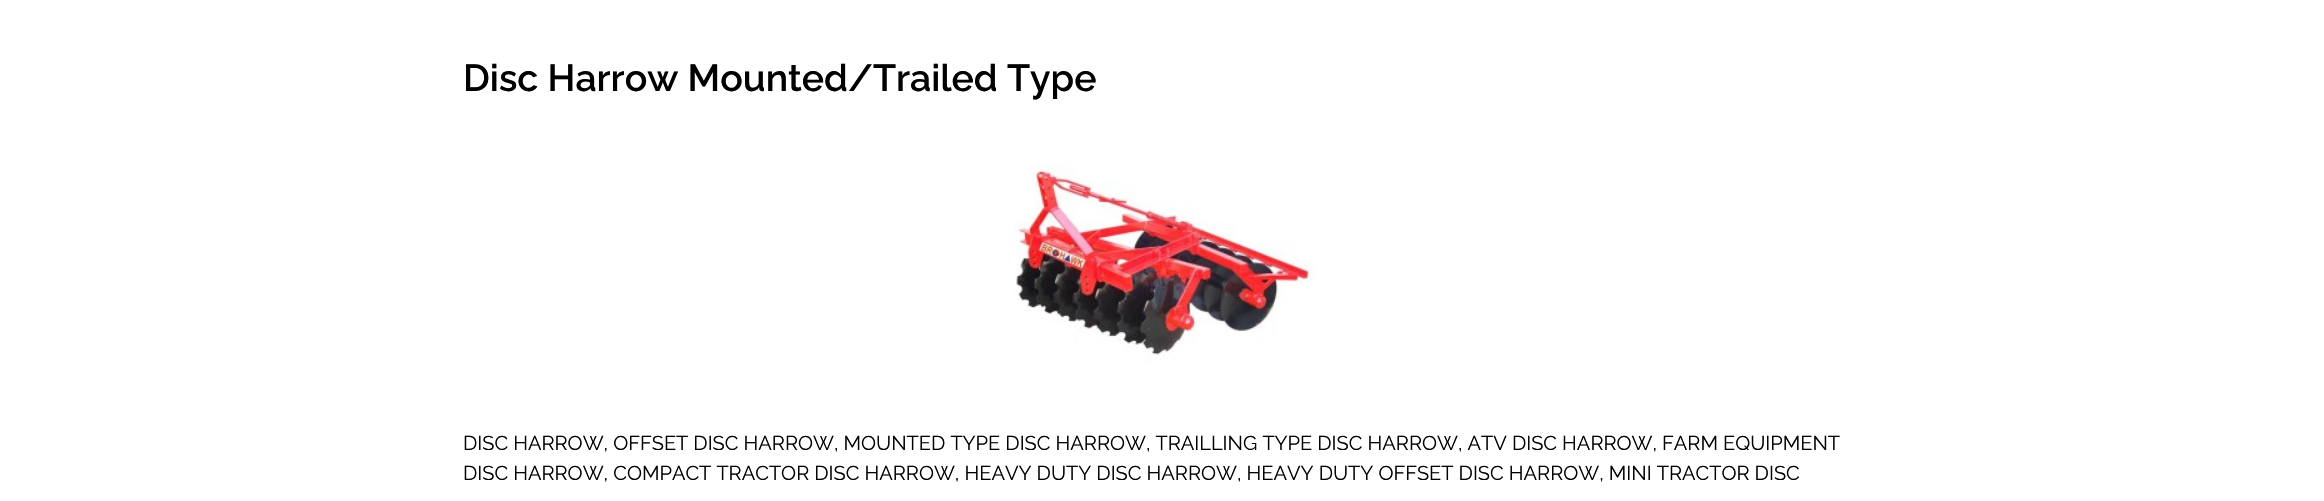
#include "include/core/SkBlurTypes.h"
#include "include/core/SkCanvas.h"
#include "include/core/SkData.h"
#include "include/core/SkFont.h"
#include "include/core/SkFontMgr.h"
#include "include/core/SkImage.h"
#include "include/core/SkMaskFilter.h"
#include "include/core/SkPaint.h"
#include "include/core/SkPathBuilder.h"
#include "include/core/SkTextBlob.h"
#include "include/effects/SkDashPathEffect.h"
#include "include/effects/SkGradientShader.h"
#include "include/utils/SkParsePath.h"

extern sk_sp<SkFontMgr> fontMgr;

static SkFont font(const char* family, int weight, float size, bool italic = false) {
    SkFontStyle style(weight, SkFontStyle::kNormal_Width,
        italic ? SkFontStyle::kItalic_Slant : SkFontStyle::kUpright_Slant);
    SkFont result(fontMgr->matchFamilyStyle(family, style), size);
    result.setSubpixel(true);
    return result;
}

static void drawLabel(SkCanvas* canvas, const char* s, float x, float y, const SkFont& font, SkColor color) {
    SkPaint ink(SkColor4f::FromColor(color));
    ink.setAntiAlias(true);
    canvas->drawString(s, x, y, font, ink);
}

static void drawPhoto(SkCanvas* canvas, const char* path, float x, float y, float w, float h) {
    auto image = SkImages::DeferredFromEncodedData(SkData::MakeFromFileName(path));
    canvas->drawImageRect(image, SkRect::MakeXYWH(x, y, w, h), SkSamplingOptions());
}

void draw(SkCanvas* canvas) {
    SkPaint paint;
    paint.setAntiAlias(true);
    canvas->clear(0xFFFFFFFF);
    SkFont font1 = font("Raleway", 600, 37.5f);
    drawLabel(canvas, "Disc Harrow Mounted/Trailed Type", 463, 91, font1, 0xFF000000);
    drawPhoto(canvas, "assets/img1.png", 1015, 162, 301, 200);
    SkFont font2 = font("Raleway", 400, 20);
    drawLabel(canvas, "DISC HARROW, OFFSET DISC HARROW, MOUNTED TYPE DISC HARROW, TRAILLING TYPE DISC HARROW, ATV DISC HARROW, FARM EQUIPMENT", 463, 450, font2, 0xFF000000);
    drawLabel(canvas, "DISC HARROW, COMPACT TRACTOR DISC HARROW, HEAVY DUTY DISC HARROW, HEAVY DUTY OFFSET DISC HARROW, MINI TRACTOR DISC", 463, 480, font2, 0xFF000000);
}
